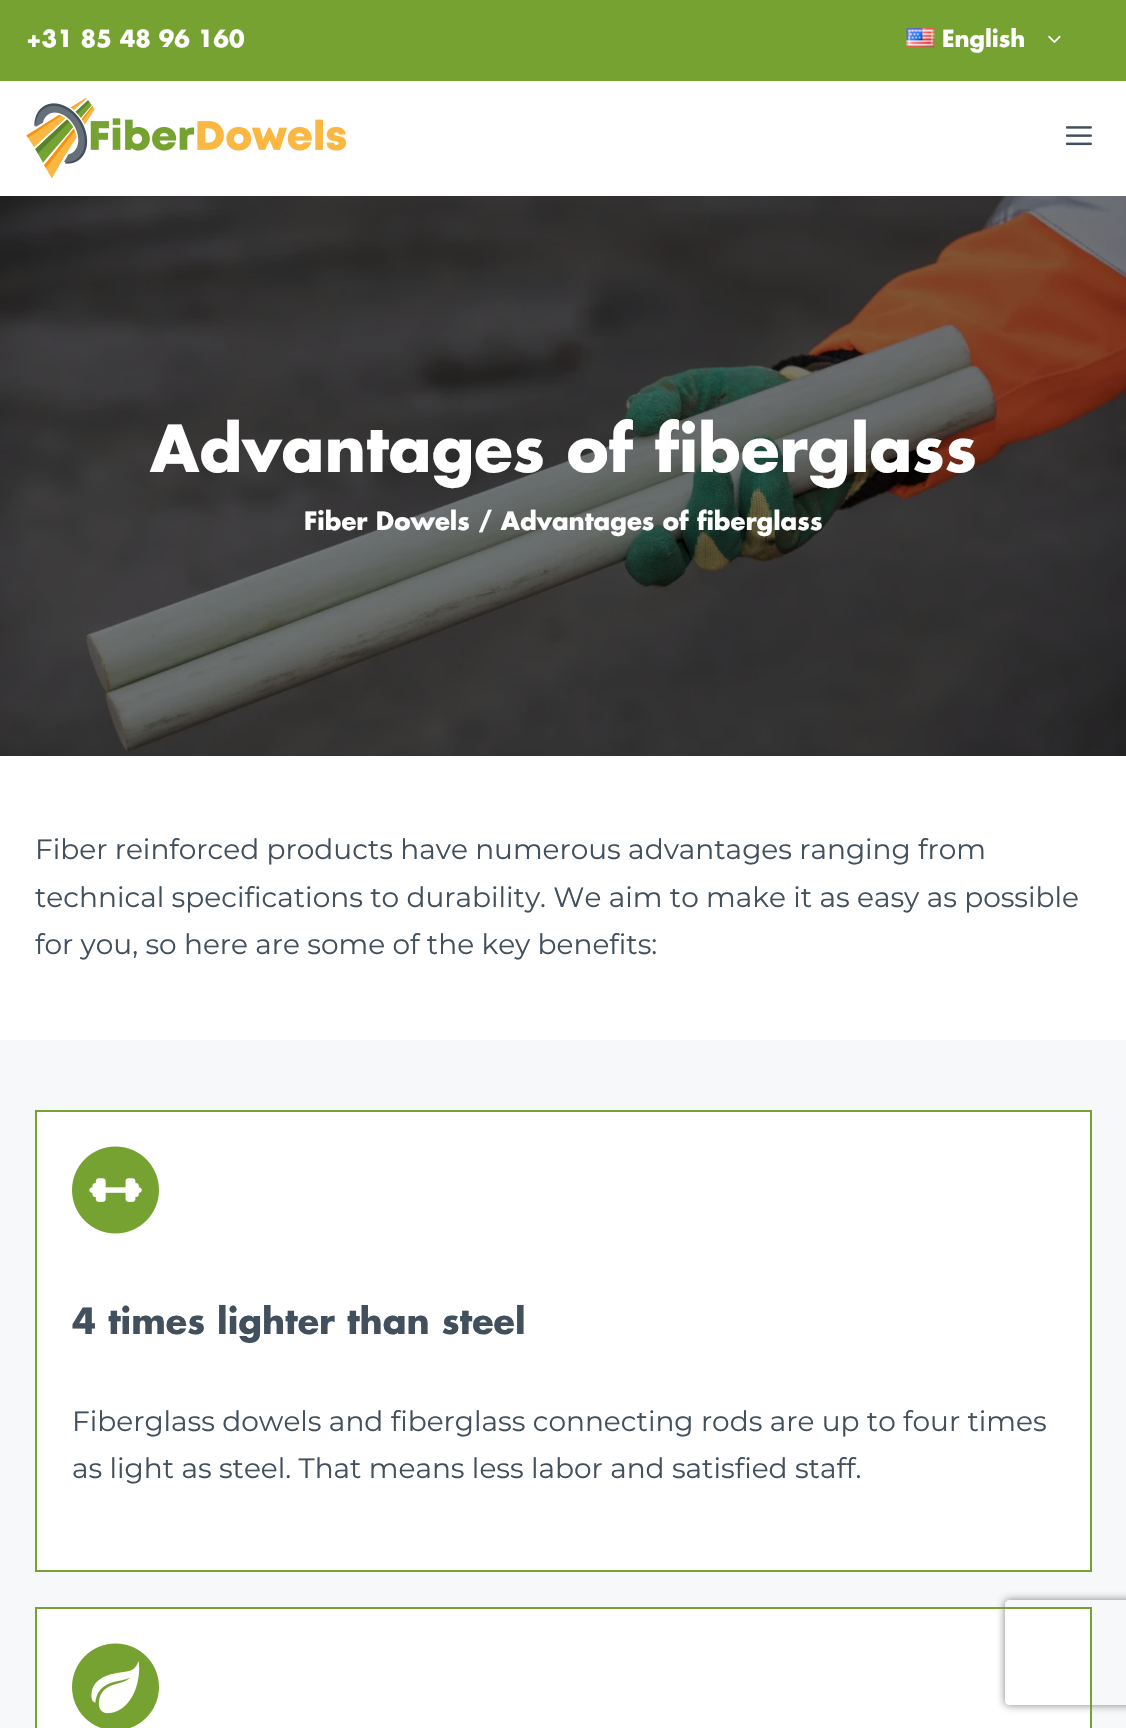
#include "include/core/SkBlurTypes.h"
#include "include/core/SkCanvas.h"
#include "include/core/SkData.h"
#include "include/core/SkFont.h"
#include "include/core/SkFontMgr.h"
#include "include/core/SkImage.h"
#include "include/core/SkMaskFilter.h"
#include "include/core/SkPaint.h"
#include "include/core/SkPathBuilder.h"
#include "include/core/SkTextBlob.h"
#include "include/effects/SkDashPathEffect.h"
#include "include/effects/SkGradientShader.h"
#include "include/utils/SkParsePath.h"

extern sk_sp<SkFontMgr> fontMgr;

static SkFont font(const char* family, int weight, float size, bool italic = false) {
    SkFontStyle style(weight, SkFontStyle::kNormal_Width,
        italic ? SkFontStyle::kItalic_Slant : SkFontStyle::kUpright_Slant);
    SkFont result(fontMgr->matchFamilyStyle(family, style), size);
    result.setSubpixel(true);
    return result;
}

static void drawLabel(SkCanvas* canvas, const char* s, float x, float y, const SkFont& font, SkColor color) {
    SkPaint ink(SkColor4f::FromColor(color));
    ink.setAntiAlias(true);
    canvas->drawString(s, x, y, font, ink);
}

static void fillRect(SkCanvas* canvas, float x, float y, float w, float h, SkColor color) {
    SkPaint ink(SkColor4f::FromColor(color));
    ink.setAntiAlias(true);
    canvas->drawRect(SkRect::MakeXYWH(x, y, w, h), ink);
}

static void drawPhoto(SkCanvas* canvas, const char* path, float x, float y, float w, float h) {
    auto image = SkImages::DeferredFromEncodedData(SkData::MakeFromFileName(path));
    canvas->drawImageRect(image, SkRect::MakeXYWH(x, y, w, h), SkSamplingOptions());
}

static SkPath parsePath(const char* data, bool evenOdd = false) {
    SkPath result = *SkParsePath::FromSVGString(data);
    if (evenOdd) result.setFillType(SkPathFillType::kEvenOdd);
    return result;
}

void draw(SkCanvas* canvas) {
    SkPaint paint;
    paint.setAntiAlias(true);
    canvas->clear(0xFFFFFFFF);
    fillRect(canvas, 0, 0, 1126, 81, 0xFF75A231);
    SkFont font1 = font("Futura", 700, 22.75f);
    drawLabel(canvas, "+31 85 48 96 160", 26, 47, font1, 0xFFFFFFFF);
    drawPhoto(canvas, "assets/img1.png", 906, 28, 29, 20);
    drawLabel(canvas, "English", 942, 47, font1, 0xFFFFFFFF);
    drawPhoto(canvas, "assets/img2.png", 1048, 35, 13, 8);
    drawPhoto(canvas, "assets/img3.png", 26, 98, 321, 81);
    drawPhoto(canvas, "assets/img4.png", 1066, 126, 26, 20);
    fillRect(canvas, 0, 196, 1126, 560, 0xFF000000);
    drawPhoto(canvas, "assets/img5.png", 0, 196, 1126, 560);
    SkFont font2 = font("Futura", 700, 63);
    drawLabel(canvas, "Advantages of fiberglass", 150, 472, font2, 0xFFFFFFFF);
    SkFont font3 = font("Futura", 700, 24.5f);
    drawLabel(canvas, "Fiber Dowels / Advantages of fiberglass", 304, 530, font3, 0xFFFFFFFF);
    SkFont font4 = font("Montserrat", 400, 28);
    drawLabel(canvas, "Fiber reinforced products have numerous advantages ranging from", 35, 859, font4, 0xFF424F5C);
    drawLabel(canvas, "technical specifications to durability. We aim to make it as easy as possible", 35, 907, font4, 0xFF424F5C);
    drawLabel(canvas, "for you, so here are some of the key benefits:", 35, 954, font4, 0xFF424F5C);
    fillRect(canvas, 0, 1040, 1126, 688, 0xFFF7F8F9);
    paint.setColor(0xFFFFFFFF);
    canvas->drawRect(SkRect::MakeXYWH(36, 1111, 1055, 460), paint);
    paint.setStroke(true);
    paint.setStrokeWidth(2);
    paint.setColor(0xFF75A231);
    canvas->drawRect(SkRect::MakeXYWH(36, 1111, 1055, 460), paint);
    drawPhoto(canvas, "assets/img6.png", 72, 1146, 87, 88);
    SkFont font5 = font("Futura", 700, 35);
    drawLabel(canvas, "4 times lighter than steel", 72, 1334, font5, 0xFF424F5C);
    drawLabel(canvas, "Fiberglass dowels and fiberglass connecting rods are up to four times", 72, 1431, font4, 0xFF424F5C);
    drawLabel(canvas, "as light as steel. That means less labor and satisfied staff.", 72, 1478, font4, 0xFF424F5C);
    paint.setStroke(false);
    paint.setColor(0xFFFFFFFF);
    canvas->drawRect(SkRect::MakeXYWH(36, 1608, 1055, 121), paint);
    paint.setStroke(true);
    paint.setColor(0xFF75A231);
    canvas->drawRect(SkRect::MakeXYWH(36, 1608, 1055, 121), paint);
    drawPhoto(canvas, "assets/img7.png", 72, 1643, 87, 85);
    canvas->save();
    canvas->clipPath(parsePath("M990 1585H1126V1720H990ZM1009 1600H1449C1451 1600 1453 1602 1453 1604V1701C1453 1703 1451 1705 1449 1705H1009C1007 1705 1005 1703 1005 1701V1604C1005 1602 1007 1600 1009 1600Z", true), true);
    paint.setStroke(false);
    paint.setColor(0xFF808080);
    paint.setMaskFilter(SkMaskFilter::MakeBlur(kNormal_SkBlurStyle, 4.5f));
    canvas->drawRoundRect(SkRect::MakeXYWH(1005, 1600, 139, 105), 4, 4, paint);
    paint.setMaskFilter(nullptr);
    canvas->restore();
}
